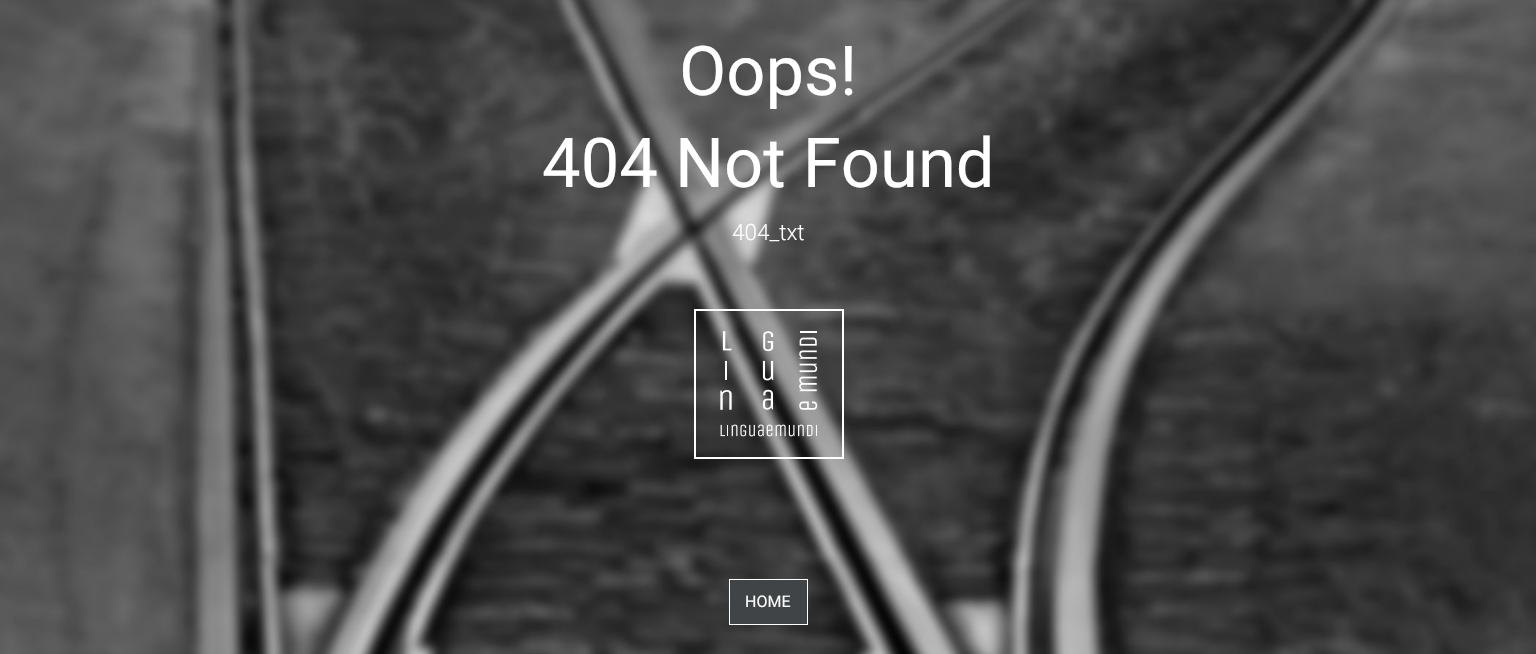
#include "include/core/SkBlurTypes.h"
#include "include/core/SkCanvas.h"
#include "include/core/SkData.h"
#include "include/core/SkFont.h"
#include "include/core/SkFontMgr.h"
#include "include/core/SkImage.h"
#include "include/core/SkMaskFilter.h"
#include "include/core/SkPaint.h"
#include "include/core/SkPathBuilder.h"
#include "include/core/SkTextBlob.h"
#include "include/effects/SkDashPathEffect.h"
#include "include/effects/SkGradientShader.h"
#include "include/utils/SkParsePath.h"

extern sk_sp<SkFontMgr> fontMgr;

static SkFont font(const char* family, int weight, float size, bool italic = false) {
    SkFontStyle style(weight, SkFontStyle::kNormal_Width,
        italic ? SkFontStyle::kItalic_Slant : SkFontStyle::kUpright_Slant);
    SkFont result(fontMgr->matchFamilyStyle(family, style), size);
    result.setSubpixel(true);
    return result;
}

static void drawLabel(SkCanvas* canvas, const char* s, float x, float y, const SkFont& font, SkColor color) {
    SkPaint ink(SkColor4f::FromColor(color));
    ink.setAntiAlias(true);
    canvas->drawString(s, x, y, font, ink);
}

static void drawPhoto(SkCanvas* canvas, const char* path, float x, float y, float w, float h) {
    auto image = SkImages::DeferredFromEncodedData(SkData::MakeFromFileName(path));
    canvas->drawImageRect(image, SkRect::MakeXYWH(x, y, w, h), SkSamplingOptions());
}

void draw(SkCanvas* canvas) {
    SkPaint paint;
    paint.setAntiAlias(true);
    canvas->clear(0xFFFFFFFF);
    drawPhoto(canvas, "assets/img1.png", 0, 0, 1536, 654);
    SkFont font1 = font("Roboto", 400, 68.75f);
    drawLabel(canvas, "Oops!", 679, 95, font1, 0xFFFFFFFF);
    drawLabel(canvas, "404 Not Found", 542, 187, font1, 0xFFFFFFFF);
    SkFont font2 = font("Roboto", 300, 22.5f);
    drawLabel(canvas, "404_txt", 732, 240, font2, 0xFFFFFFFF);
    drawPhoto(canvas, "assets/img2.png", 694, 309, 150, 150);
    paint.setColor(0xFF414446);
    canvas->drawRect(SkRect::MakeXYWH(729.5f, 579.5f, 78, 45), paint);
    paint.setStroke(true);
    paint.setStrokeWidth(1);
    paint.setColor(0xFFFFFFFF);
    canvas->drawRect(SkRect::MakeXYWH(729.5f, 579.5f, 78, 45), paint);
    SkFont font3 = font("Roboto", 400, 16);
    drawLabel(canvas, "HOME", 745, 607, font3, 0xFFFFFFFF);
}
